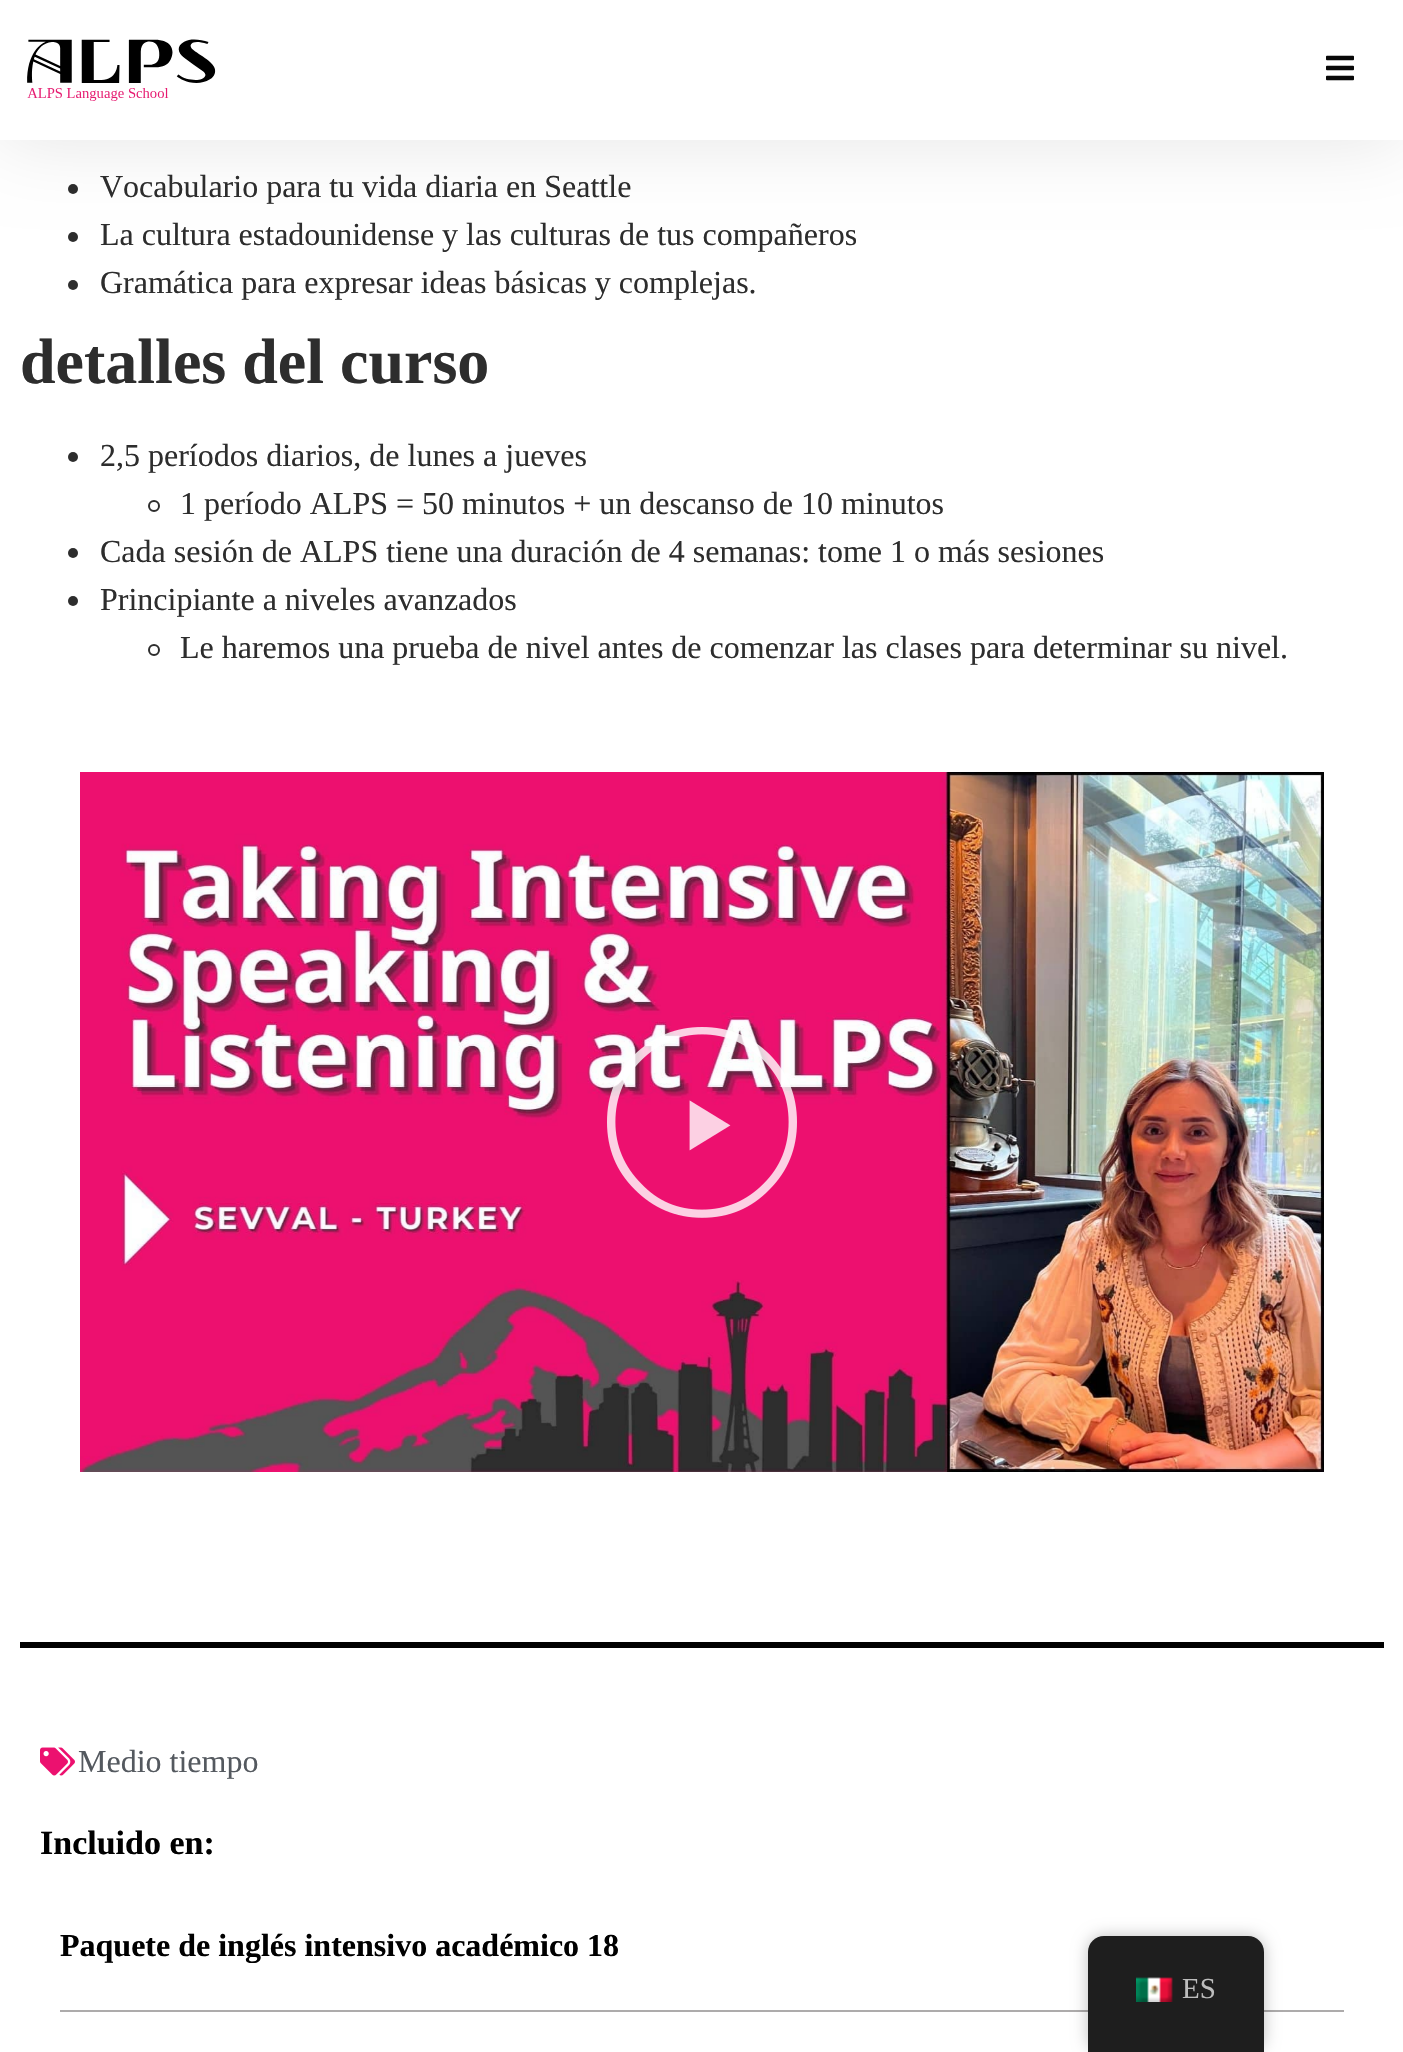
#include "include/core/SkBlurTypes.h"
#include "include/core/SkCanvas.h"
#include "include/core/SkData.h"
#include "include/core/SkFont.h"
#include "include/core/SkFontMgr.h"
#include "include/core/SkImage.h"
#include "include/core/SkMaskFilter.h"
#include "include/core/SkPaint.h"
#include "include/core/SkPathBuilder.h"
#include "include/core/SkTextBlob.h"
#include "include/effects/SkDashPathEffect.h"
#include "include/effects/SkGradientShader.h"
#include "include/utils/SkParsePath.h"

extern sk_sp<SkFontMgr> fontMgr;

static SkFont font(const char* family, int weight, float size, bool italic = false) {
    SkFontStyle style(weight, SkFontStyle::kNormal_Width,
        italic ? SkFontStyle::kItalic_Slant : SkFontStyle::kUpright_Slant);
    SkFont result(fontMgr->matchFamilyStyle(family, style), size);
    result.setSubpixel(true);
    return result;
}

static void drawLabel(SkCanvas* canvas, const char* s, float x, float y, const SkFont& font, SkColor color) {
    SkPaint ink(SkColor4f::FromColor(color));
    ink.setAntiAlias(true);
    canvas->drawString(s, x, y, font, ink);
}

static void fillRect(SkCanvas* canvas, float x, float y, float w, float h, SkColor color) {
    SkPaint ink(SkColor4f::FromColor(color));
    ink.setAntiAlias(true);
    canvas->drawRect(SkRect::MakeXYWH(x, y, w, h), ink);
}

static void drawPhoto(SkCanvas* canvas, const char* path, float x, float y, float w, float h) {
    auto image = SkImages::DeferredFromEncodedData(SkData::MakeFromFileName(path));
    canvas->drawImageRect(image, SkRect::MakeXYWH(x, y, w, h), SkSamplingOptions());
}

static SkPath parsePath(const char* data, bool evenOdd = false) {
    SkPath result = *SkParsePath::FromSVGString(data);
    if (evenOdd) result.setFillType(SkPathFillType::kEvenOdd);
    return result;
}

void draw(SkCanvas* canvas) {
    SkPaint paint;
    paint.setAntiAlias(true);
    canvas->clear(0xFFFFFFFF);
    paint.setColor(0xFF2D2D2D);
    canvas->drawCircle(73, 189, 5, paint);
    canvas->drawCircle(73, 237, 5, paint);
    paint.setColor(0x1A000000);
    paint.setMaskFilter(SkMaskFilter::MakeBlur(kNormal_SkBlurStyle, 38));
    canvas->drawRect(SkRect::MakeXYWH(0, 0, 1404, 140), paint);
    paint.setMaskFilter(nullptr);
    fillRect(canvas, 0, 0, 1403, 140, 0xFFFFFFFF);
    drawPhoto(canvas, "assets/img1.png", 27, 39, 189, 62);
    drawPhoto(canvas, "assets/img2.png", 1326, 55, 28, 26);
    SkFont font1 = font("Liberation Serif", 400, 32);
    drawLabel(canvas, "Vocabulario para tu vida diaria en Seattle", 100, 197, font1, 0xFF2D2D2D);
    drawLabel(canvas, "La cultura estadounidense y las culturas de tus compañeros", 100, 245, font1, 0xFF2D2D2D);
    paint.setColor(0xFF2D2D2D);
    canvas->drawCircle(73, 285, 5, paint);
    drawLabel(canvas, "Gramática para expresar ideas básicas y complejas.", 100, 293, font1, 0xFF2D2D2D);
    SkFont font2 = font("Liberation Serif", 700, 64);
    drawLabel(canvas, "detalles del curso", 20, 383, font2, 0xFF2D2D2D);
    canvas->drawCircle(73, 457, 5, paint);
    drawLabel(canvas, "2,5 períodos diarios, de lunes a jueves", 100, 466, font1, 0xFF2D2D2D);
    paint.setStroke(true);
    paint.setStrokeWidth(2);
    canvas->drawCircle(154, 506, 5, paint);
    drawLabel(canvas, "1 período ALPS = 50 minutos + un descanso de 10 minutos", 180, 514, font1, 0xFF2D2D2D);
    paint.setStroke(false);
    canvas->drawCircle(73, 553, 5, paint);
    drawLabel(canvas, "Cada sesión de ALPS tiene una duración de 4 semanas: tome 1 o más sesiones", 100, 562, font1, 0xFF2D2D2D);
    canvas->drawCircle(73, 601, 5, paint);
    drawLabel(canvas, "Principiante a niveles avanzados", 100, 610, font1, 0xFF2D2D2D);
    paint.setStroke(true);
    canvas->drawCircle(154, 650, 5, paint);
    drawLabel(canvas, "Le haremos una prueba de nivel antes de comenzar las clases para determinar su nivel.", 180, 658, font1, 0xFF2D2D2D);
    drawPhoto(canvas, "assets/img3.png", 80, 772, 1244, 700);
    drawPhoto(canvas, "assets/img4.png", 607, 1027, 190, 191);
    fillRect(canvas, 20, 1642, 1364, 6, 0xFF000000);
    drawPhoto(canvas, "assets/img5.png", 40, 1747, 35, 29);
    drawLabel(canvas, "Medio tiempo", 78, 1772, font1, 0xFF54595F);
    SkFont font3 = font("Liberation Serif", 700, 34);
    drawLabel(canvas, "Incluido en:", 40, 1854, font3, 0xFF000000);
    SkFont font4 = font("Liberation Serif", 700, 32);
    drawLabel(canvas, "Paquete de inglés intensivo académico 18", 60, 1956, font4, 0xFF000000);
    fillRect(canvas, 60, 2010, 1284, 2, 0xFFADABAB);
    paint.setStroke(false);
    paint.setColor(0x40000000);
    paint.setMaskFilter(SkMaskFilter::MakeBlur(kNormal_SkBlurStyle, 8));
    canvas->drawRoundRect(SkRect::MakeXYWH(1088, 1936, 176, 116), 16, 16, paint);
    paint.setMaskFilter(nullptr);
    paint.setColor(0xFF1E1E1E);
    canvas->drawPath(parsePath("M1104 1936H1248C1257 1936 1264 1943 1264 1952V2052H1088V1952C1088 1943 1095 1936 1104 1936Z"), paint);
    drawPhoto(canvas, "assets/img6.png", 1136, 1977, 37, 25);
    SkFont font5 = font("Liberation Serif", 400, 29);
    drawLabel(canvas, "ES", 1182, 1998, font5, 0xFFBDBDBD);
}
